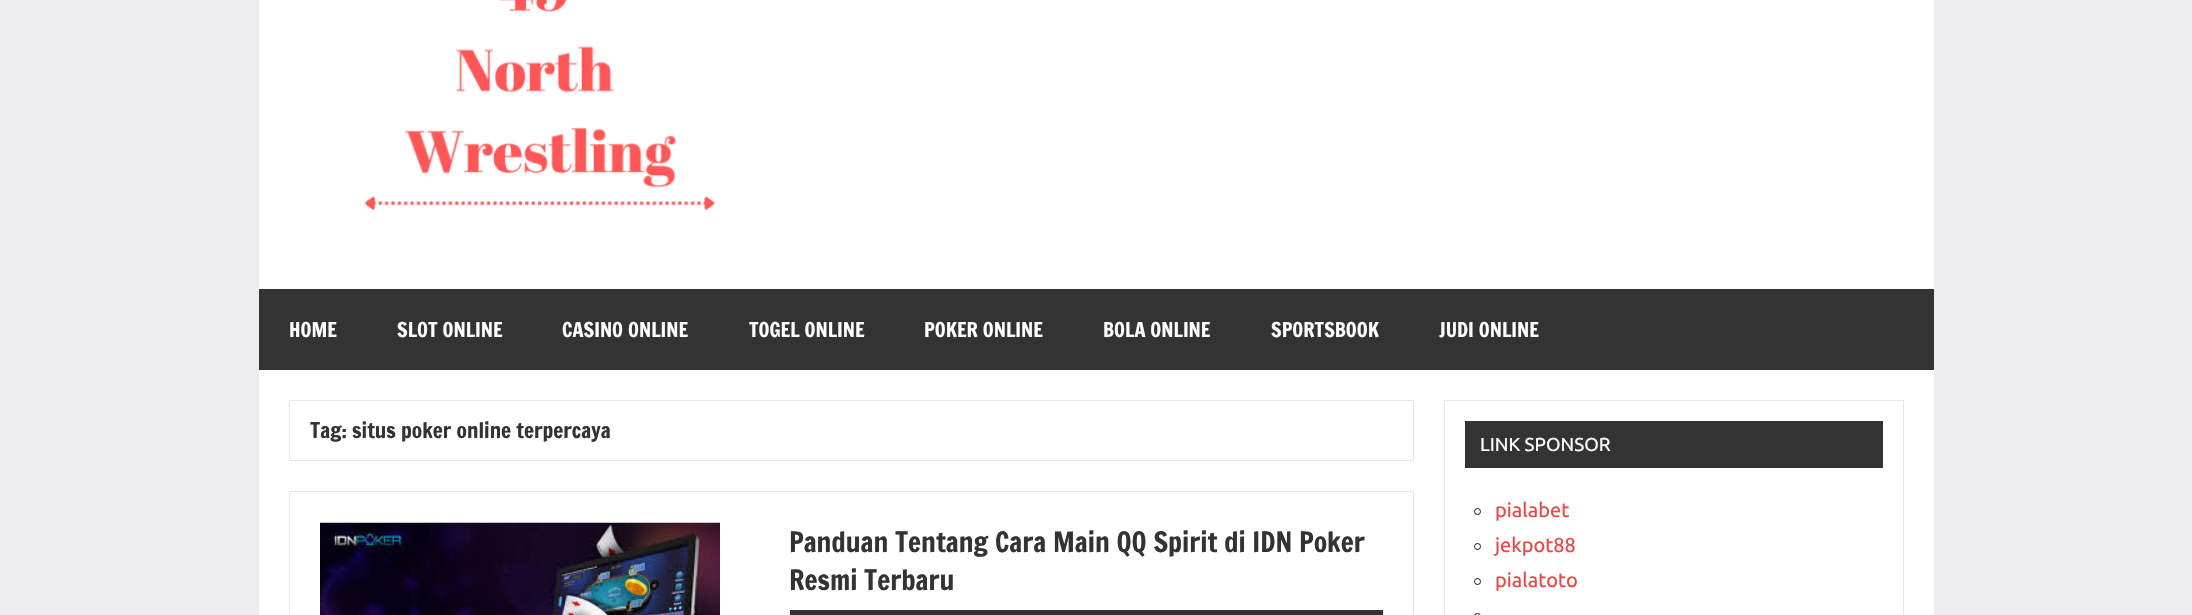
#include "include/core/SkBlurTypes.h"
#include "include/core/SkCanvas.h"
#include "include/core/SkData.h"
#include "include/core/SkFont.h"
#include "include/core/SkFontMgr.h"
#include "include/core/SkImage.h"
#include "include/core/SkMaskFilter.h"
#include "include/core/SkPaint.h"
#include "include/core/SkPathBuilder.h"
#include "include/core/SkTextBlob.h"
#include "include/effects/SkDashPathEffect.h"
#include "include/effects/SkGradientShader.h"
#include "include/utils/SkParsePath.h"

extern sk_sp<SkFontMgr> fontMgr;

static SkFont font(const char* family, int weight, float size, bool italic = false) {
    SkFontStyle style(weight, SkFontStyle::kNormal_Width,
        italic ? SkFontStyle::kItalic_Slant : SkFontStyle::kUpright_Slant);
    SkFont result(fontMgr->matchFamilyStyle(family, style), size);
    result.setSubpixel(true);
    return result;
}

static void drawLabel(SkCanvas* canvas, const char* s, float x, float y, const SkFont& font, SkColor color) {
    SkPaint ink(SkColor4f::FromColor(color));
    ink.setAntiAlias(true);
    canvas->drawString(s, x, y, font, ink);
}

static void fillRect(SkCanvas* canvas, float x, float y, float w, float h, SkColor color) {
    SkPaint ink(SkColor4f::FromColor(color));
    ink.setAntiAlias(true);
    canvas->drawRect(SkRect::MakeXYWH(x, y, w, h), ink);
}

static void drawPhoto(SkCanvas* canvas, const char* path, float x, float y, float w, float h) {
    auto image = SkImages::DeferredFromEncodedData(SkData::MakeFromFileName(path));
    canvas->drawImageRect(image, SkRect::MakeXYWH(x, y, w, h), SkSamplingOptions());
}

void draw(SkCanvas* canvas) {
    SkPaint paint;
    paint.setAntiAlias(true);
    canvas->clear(0xFFEDEDEF);
    fillRect(canvas, 259, 0, 1675, 289, 0xFFFFFFFF);
    drawPhoto(canvas, "assets/img1.png", 364, 0, 351, 211);
    fillRect(canvas, 259, 289, 1675, 81, 0xFF333333);
    SkFont font1 = font("Francois One", 400, 20);
    drawLabel(canvas, "HOME", 289, 337, font1, 0xFFFFFFFF);
    drawLabel(canvas, "SLOT ONLINE", 397, 337, font1, 0xFFFFFFFF);
    drawLabel(canvas, "CASINO ONLINE", 562, 337, font1, 0xFFFFFFFF);
    drawLabel(canvas, "TOGEL ONLINE", 749, 337, font1, 0xFFFFFFFF);
    drawLabel(canvas, "POKER ONLINE", 924, 337, font1, 0xFFFFFFFF);
    drawLabel(canvas, "BOLA ONLINE", 1103, 337, font1, 0xFFFFFFFF);
    drawLabel(canvas, "SPORTSBOOK", 1271, 337, font1, 0xFFFFFFFF);
    drawLabel(canvas, "JUDI ONLINE", 1439, 337, font1, 0xFFFFFFFF);
    fillRect(canvas, 259, 370, 1675, 245, 0xFFFFFFFF);
    paint.setStroke(true);
    paint.setStrokeWidth(1);
    paint.setColor(0xFFE6E6E6);
    canvas->drawRect(SkRect::MakeXYWH(289.5f, 400.5f, 1124, 60), paint);
    SkFont font2 = font("Francois One", 400, 21.25f);
    drawLabel(canvas, "Tag: situs poker online terpercaya", 310, 438, font2, 0xFF333333);
    canvas->drawRect(SkRect::MakeXYWH(289.5f, 491.5f, 1124, 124), paint);
    drawPhoto(canvas, "assets/img2.png", 320, 522, 400, 93);
    fillRect(canvas, 790, 610, 593, 5, 0xFF333333);
    SkFont font3 = font("Francois One", 400, 27.5f);
    drawLabel(canvas, "Panduan Tentang Cara Main QQ Spirit di IDN Poker", 789, 552, font3, 0xFF333333);
    drawLabel(canvas, "Resmi Terbaru", 789, 590, font3, 0xFF333333);
    canvas->drawRect(SkRect::MakeXYWH(1444.5f, 400.5f, 459, 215), paint);
    fillRect(canvas, 1465, 421, 418, 47, 0xFF333333);
    SkFont font4 = font("Ubuntu", 400, 18.75f);
    drawLabel(canvas, "LINK SPONSOR", 1480, 451, font4, 0xFFFFFFFF);
    paint.setColor(0xFF1A1A1A);
    canvas->drawCircle(1477.5f, 511.5f, 3, paint);
    SkFont font5 = font("Ubuntu", 400, 20);
    drawLabel(canvas, "pialabet", 1495, 517, font5, 0xFFE84747);
    canvas->drawCircle(1477.5f, 546.5f, 3, paint);
    drawLabel(canvas, "jekpot88", 1495, 552, font5, 0xFFE84747);
    canvas->drawCircle(1477.5f, 581.5f, 3, paint);
    drawLabel(canvas, "pialatoto", 1495, 587, font5, 0xFFE84747);
    canvas->drawCircle(1477.5f, 616.5f, 3, paint);
}
